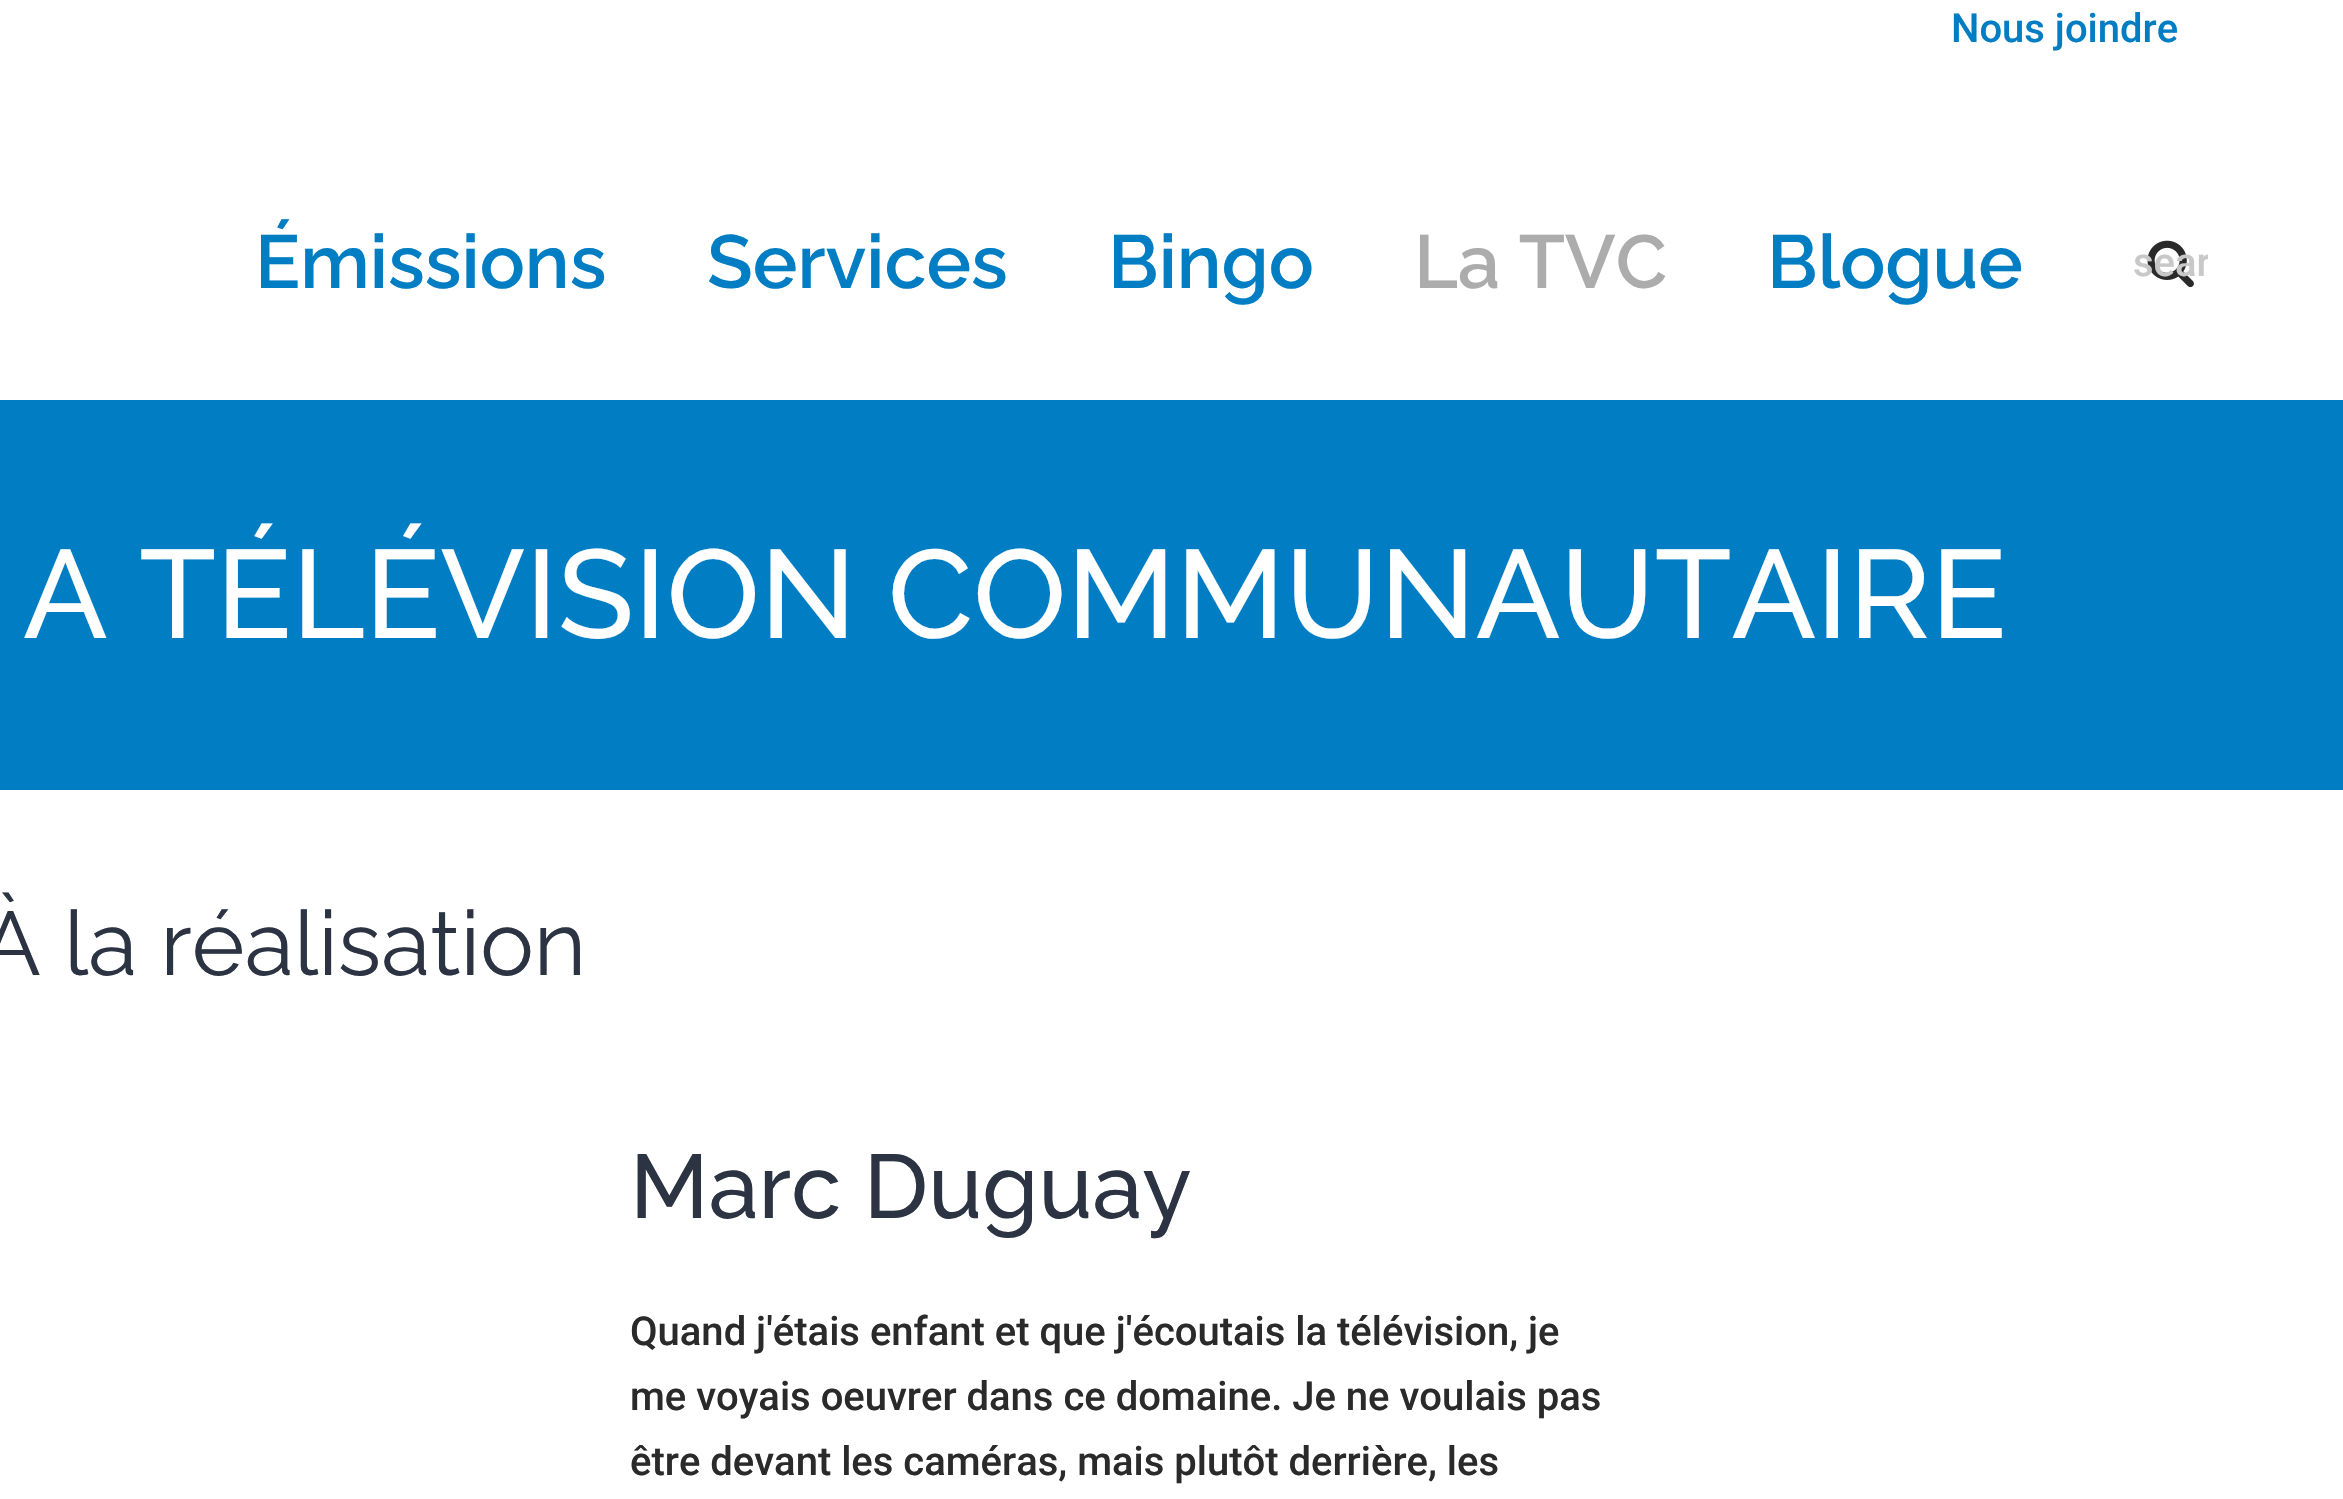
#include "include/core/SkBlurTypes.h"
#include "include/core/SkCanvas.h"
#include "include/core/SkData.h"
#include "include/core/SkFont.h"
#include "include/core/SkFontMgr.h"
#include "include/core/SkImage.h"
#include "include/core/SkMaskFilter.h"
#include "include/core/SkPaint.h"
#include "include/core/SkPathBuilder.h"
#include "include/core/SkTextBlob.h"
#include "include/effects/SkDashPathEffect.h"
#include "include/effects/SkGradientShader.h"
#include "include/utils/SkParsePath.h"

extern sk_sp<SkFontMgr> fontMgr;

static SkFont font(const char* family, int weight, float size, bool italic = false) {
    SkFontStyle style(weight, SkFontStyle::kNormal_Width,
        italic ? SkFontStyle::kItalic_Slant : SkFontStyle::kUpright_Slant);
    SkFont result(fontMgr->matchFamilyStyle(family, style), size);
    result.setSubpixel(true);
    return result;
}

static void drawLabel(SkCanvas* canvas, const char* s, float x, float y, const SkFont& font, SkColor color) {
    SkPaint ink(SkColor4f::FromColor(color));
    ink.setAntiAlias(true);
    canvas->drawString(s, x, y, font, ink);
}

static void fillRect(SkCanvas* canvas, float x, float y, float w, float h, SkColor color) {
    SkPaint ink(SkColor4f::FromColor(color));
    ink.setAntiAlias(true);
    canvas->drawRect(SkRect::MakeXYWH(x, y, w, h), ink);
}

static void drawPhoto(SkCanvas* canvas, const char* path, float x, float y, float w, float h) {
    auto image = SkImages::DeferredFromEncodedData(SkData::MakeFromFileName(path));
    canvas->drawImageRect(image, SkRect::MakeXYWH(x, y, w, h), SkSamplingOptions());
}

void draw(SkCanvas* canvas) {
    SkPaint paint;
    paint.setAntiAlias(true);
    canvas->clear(0xFFFFFFFF);
    SkFont font1 = font("Roboto", 500, 40);
    drawLabel(canvas, "Nous joindre", 1951, 42, font1, 0xFF007DC3);
    SkFont font2 = font("Raleway", 600, 75);
    drawLabel(canvas, "Émissions", 255, 288, font2, 0xFF007DC3);
    drawLabel(canvas, "Services", 707, 288, font2, 0xFF007DC3);
    drawLabel(canvas, "Bingo", 1108, 288, font2, 0xFF007DC3);
    drawLabel(canvas, "La TVC", 1414, 288, font2, 0xFFACACAC);
    drawLabel(canvas, "Blogue", 1767, 288, font2, 0xFF007DC3);
    drawPhoto(canvas, "assets/img1.png", 2147, 240, 47, 48);
    canvas->save();
    canvas->clipRect(SkRect::MakeXYWH(2133, 240, 75, 48));
    drawLabel(canvas, "sear", 2133, 276, font1, 0xFFC8C8C8);
    canvas->restore();
    fillRect(canvas, 0, 400, 2343, 390, 0xFF007DC3);
    SkFont font3 = font("Raleway", 500, 125);
    drawLabel(canvas, "A TÉLÉVISION COMMUNAUTAIRE", 23, 638, font3, 0xFFFFFFFF);
    SkFont font4 = font("Raleway", 400, 90);
    drawLabel(canvas, "À la réalisation", -20, 975, font4, 0xFF2C3343);
    SkFont font5 = font("Raleway", 500, 90);
    drawLabel(canvas, "Marc Duguay", 630, 1218, font5, 0xFF2C3343);
    drawLabel(canvas, "Quand j'étais enfant et que j'écoutais la télévision, je", 630, 1345, font1, 0xFF2A2A2A);
    drawLabel(canvas, "me voyais oeuvrer dans ce domaine. Je ne voulais pas", 630, 1410, font1, 0xFF2A2A2A);
    drawLabel(canvas, "être devant les caméras, mais plutôt derrière, les", 630, 1475, font1, 0xFF2A2A2A);
}
